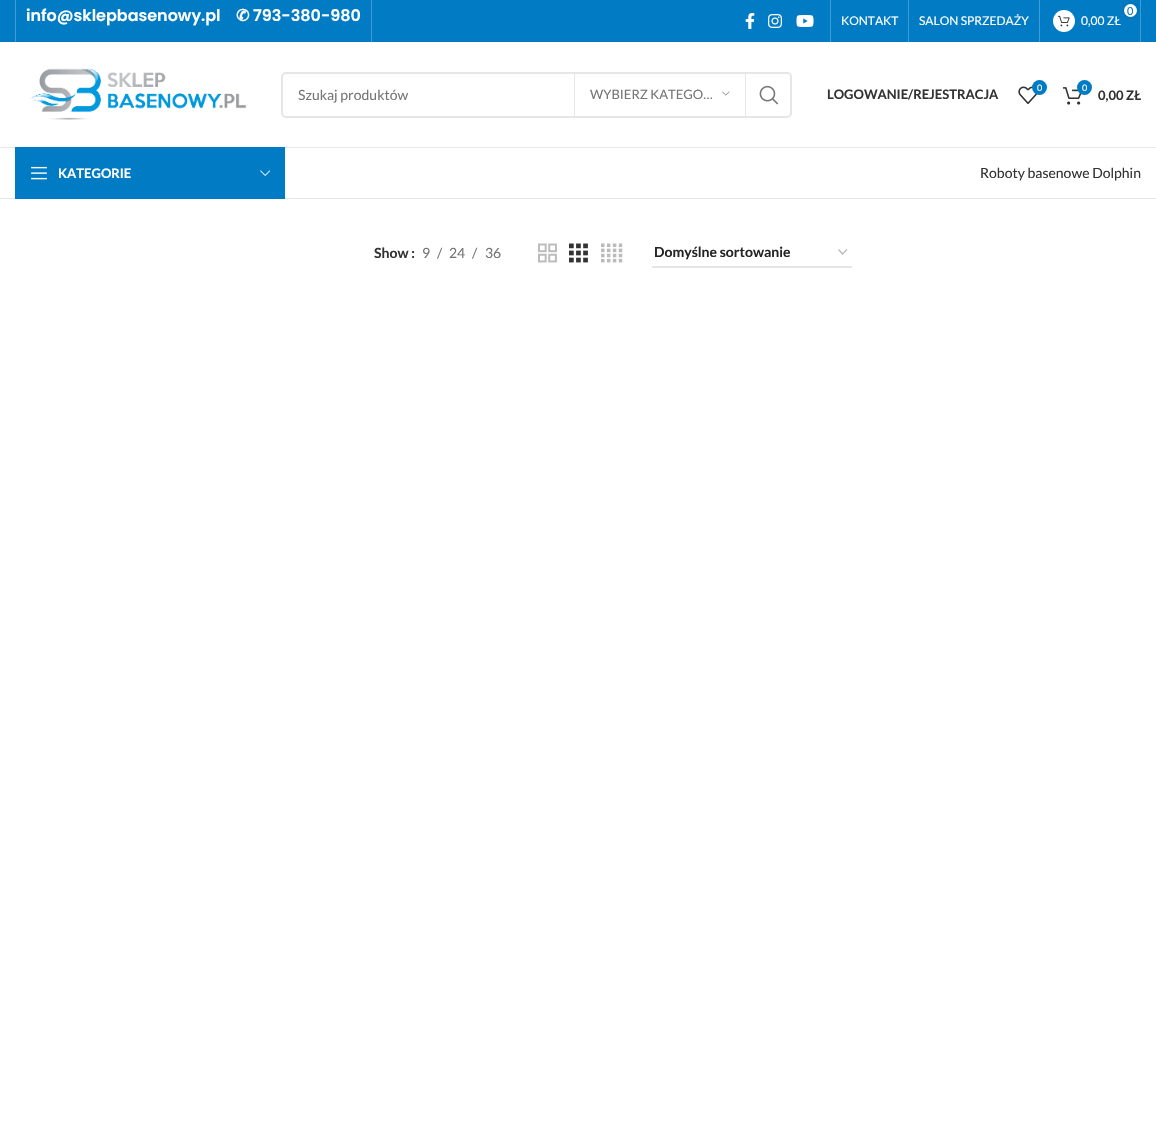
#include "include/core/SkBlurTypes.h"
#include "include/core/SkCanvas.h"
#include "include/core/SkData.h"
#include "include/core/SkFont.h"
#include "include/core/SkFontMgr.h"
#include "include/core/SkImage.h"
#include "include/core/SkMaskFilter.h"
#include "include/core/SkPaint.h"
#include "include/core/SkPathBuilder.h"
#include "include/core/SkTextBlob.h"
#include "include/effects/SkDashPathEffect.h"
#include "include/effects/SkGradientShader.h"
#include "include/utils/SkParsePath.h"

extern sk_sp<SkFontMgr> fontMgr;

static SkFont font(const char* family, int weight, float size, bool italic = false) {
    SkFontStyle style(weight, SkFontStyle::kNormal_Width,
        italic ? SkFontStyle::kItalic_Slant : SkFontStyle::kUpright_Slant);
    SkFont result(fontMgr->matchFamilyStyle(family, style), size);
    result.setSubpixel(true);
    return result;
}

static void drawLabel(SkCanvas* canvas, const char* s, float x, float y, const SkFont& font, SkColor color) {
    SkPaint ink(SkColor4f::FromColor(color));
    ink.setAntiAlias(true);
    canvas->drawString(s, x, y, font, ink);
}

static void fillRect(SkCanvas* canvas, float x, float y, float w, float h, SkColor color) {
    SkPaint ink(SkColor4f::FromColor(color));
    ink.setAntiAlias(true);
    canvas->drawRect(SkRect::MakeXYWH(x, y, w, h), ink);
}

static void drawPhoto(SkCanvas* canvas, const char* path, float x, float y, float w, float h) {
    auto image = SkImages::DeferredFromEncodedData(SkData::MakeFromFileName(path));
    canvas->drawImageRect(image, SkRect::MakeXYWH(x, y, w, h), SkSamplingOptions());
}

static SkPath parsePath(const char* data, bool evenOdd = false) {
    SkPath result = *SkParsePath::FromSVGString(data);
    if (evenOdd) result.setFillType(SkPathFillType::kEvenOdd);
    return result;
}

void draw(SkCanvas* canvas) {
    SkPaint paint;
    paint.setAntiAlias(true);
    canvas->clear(0xFFFFFFFF);
    fillRect(canvas, 0, 0, 1156, 42, 0xFF007BC4);
    fillRect(canvas, 15, 0, 1, 42, 0xFF409CD3);
    SkFont font1 = font("Poppins", 600, 16);
    drawLabel(canvas, "info@sklepbasenowy.pl", 26, 21, font1, 0xFFFFFFFF);
    SkFont font2 = font("DejaVu Sans", 700, 16);
    drawLabel(canvas, "✆", 236, 21, font2, 0xFFFFFFFF);
    drawLabel(canvas, "793-380-980", 253, 21, font1, 0xFFFFFFFF);
    fillRect(canvas, 371, 0, 1, 42, 0xFF409CD3);
    drawPhoto(canvas, "assets/img1.png", 745, 13, 10, 16);
    drawPhoto(canvas, "assets/img2.png", 768, 14, 14, 14);
    drawPhoto(canvas, "assets/img3.png", 796, 15, 18, 12);
    fillRect(canvas, 830, 0, 1, 42, 0xFF409CD3);
    SkFont font3 = font("Lato", 400, 12);
    drawLabel(canvas, "KONTAKT", 841, 25, font3, 0xFFFFFFFF);
    fillRect(canvas, 908, 0, 1, 42, 0xFF409CD3);
    drawLabel(canvas, "SALON SPRZEDAŻY", 919, 25, font3, 0xFFFFFFFF);
    fillRect(canvas, 1039, 0, 1, 42, 0xFF409CD3);
    paint.setColor(0xFFFFFFFF);
    canvas->drawCircle(1064, 21, 11, paint);
    fillRect(canvas, 1140, 0, 1, 42, 0xFF409CD3);
    paint.setColor(0x2B000000);
    paint.setMaskFilter(SkMaskFilter::MakeBlur(kNormal_SkBlurStyle, 2));
    canvas->drawRoundRect(SkRect::MakeXYWH(1124, 4, 13, 13), 6.5f, 6.5f, paint);
    paint.setMaskFilter(nullptr);
    paint.setColor(0xFFFFFFFF);
    canvas->drawCircle(1130.5f, 10.5f, 6.5f, paint);
    SkFont font4 = font("Lato", 400, 11);
    drawLabel(canvas, "0", 1127, 15, font4, 0xFF007BC4);
    drawPhoto(canvas, "assets/img4.png", 1058, 15, 12, 12);
    drawLabel(canvas, "0,00 ZŁ", 1081, 25, font3, 0xFFFFFFFF);
    fillRect(canvas, 0, 147, 1156, 1, 0xFFE8E8E8);
    drawPhoto(canvas, "assets/img5.png", 30, 68, 216, 52);
    paint.setStroke(true);
    paint.setStrokeWidth(2);
    paint.setColor(0xFFE6E6E6);
    canvas->drawRoundRect(SkRect::MakeXYWH(282, 73, 509, 44), 4, 4, paint);
    SkFont font5 = font("Lato", 400, 14);
    drawLabel(canvas, "Szukaj produktów", 298, 100, font5, 0xFF767676);
    fillRect(canvas, 745, 74, 1, 42, 0xFFE6E6E6);
    fillRect(canvas, 574, 74, 1, 42, 0xFFE6E6E6);
    SkFont font6 = font("Lato", 400, 13);
    drawLabel(canvas, "WYBIERZ KATEGO…", 590, 99, font6, 0xFF767676);
    drawPhoto(canvas, "assets/img6.png", 722, 91, 8, 5);
    drawPhoto(canvas, "assets/img7.png", 759, 85, 20, 20);
    SkFont font7 = font("Lato", 700, 13);
    drawLabel(canvas, "LOGOWANIE/REJESTRACJA", 827, 99, font7, 0xFF333333);
    drawPhoto(canvas, "assets/img8.png", 1018, 86, 20, 18);
    paint.setStroke(false);
    paint.setColor(0xFF007BC4);
    canvas->drawCircle(1039.5f, 87.5f, 7.5f, paint);
    SkFont font8 = font("Lato", 400, 9);
    drawLabel(canvas, "0", 1037, 91, font8, 0xFFFFFFFF);
    drawPhoto(canvas, "assets/img9.png", 1063, 87, 19, 18);
    canvas->drawCircle(1084.5f, 87.5f, 7.5f, paint);
    drawLabel(canvas, "0", 1082, 91, font8, 0xFFFFFFFF);
    drawLabel(canvas, "0,00 ZŁ", 1098, 100, font7, 0xFF333333);
    fillRect(canvas, 0, 198, 1156, 1, 0xFFE8E8E8);
    fillRect(canvas, 15, 147, 270, 52, 0xFF007BC4);
    drawPhoto(canvas, "assets/img10.png", 31, 166, 16, 14);
    drawLabel(canvas, "KATEGORIE", 58, 178, font7, 0xFFFFFFFF);
    drawPhoto(canvas, "assets/img11.png", 260, 170, 11, 6);
    drawLabel(canvas, "Roboty basenowe Dolphin", 980, 178, font5, 0xFF333333);
    SkFont font9 = font("Lato", 700, 14);
    drawLabel(canvas, "Show :", 374, 258, font9, 0xFF333333);
    drawLabel(canvas, "9", 422, 258, font5, 0xFF767676);
    drawLabel(canvas, "/", 437, 258, font5, 0xFF767676);
    drawLabel(canvas, "24", 449, 258, font5, 0xFF767676);
    drawLabel(canvas, "/", 472, 258, font5, 0xFF767676);
    drawLabel(canvas, "36", 485, 258, font5, 0xFF767676);
    drawPhoto(canvas, "assets/img12.png", 538, 243, 19, 20);
    drawPhoto(canvas, "assets/img13.png", 569, 243, 19, 20);
    drawPhoto(canvas, "assets/img14.png", 601, 243, 22, 20);
    paint.setStroke(true);
    paint.setStrokeWidth(1.4f);
    paint.setColor(0xFFBBBBBB);
    canvas->drawPath(parsePath("M838.5 249.5L842.5 254L847 249.5"), paint);
    fillRect(canvas, 652, 266, 200, 2, 0xFFE6E6E6);
    drawLabel(canvas, "Domyślne sortowanie", 654, 257, font9, 0xFF242424);
}
